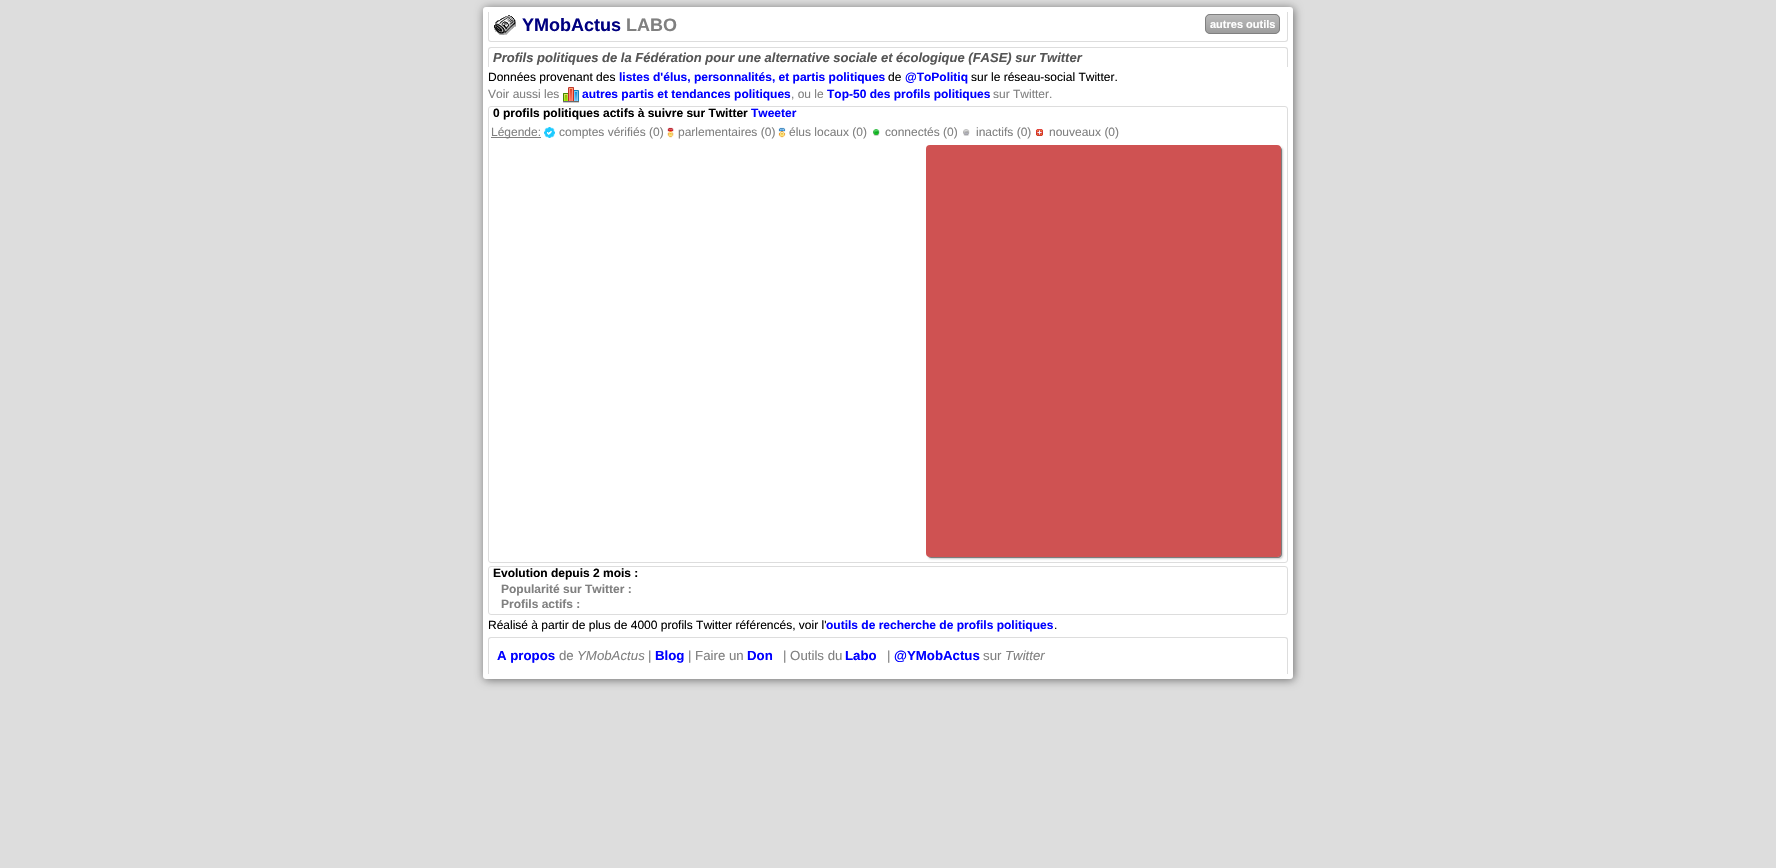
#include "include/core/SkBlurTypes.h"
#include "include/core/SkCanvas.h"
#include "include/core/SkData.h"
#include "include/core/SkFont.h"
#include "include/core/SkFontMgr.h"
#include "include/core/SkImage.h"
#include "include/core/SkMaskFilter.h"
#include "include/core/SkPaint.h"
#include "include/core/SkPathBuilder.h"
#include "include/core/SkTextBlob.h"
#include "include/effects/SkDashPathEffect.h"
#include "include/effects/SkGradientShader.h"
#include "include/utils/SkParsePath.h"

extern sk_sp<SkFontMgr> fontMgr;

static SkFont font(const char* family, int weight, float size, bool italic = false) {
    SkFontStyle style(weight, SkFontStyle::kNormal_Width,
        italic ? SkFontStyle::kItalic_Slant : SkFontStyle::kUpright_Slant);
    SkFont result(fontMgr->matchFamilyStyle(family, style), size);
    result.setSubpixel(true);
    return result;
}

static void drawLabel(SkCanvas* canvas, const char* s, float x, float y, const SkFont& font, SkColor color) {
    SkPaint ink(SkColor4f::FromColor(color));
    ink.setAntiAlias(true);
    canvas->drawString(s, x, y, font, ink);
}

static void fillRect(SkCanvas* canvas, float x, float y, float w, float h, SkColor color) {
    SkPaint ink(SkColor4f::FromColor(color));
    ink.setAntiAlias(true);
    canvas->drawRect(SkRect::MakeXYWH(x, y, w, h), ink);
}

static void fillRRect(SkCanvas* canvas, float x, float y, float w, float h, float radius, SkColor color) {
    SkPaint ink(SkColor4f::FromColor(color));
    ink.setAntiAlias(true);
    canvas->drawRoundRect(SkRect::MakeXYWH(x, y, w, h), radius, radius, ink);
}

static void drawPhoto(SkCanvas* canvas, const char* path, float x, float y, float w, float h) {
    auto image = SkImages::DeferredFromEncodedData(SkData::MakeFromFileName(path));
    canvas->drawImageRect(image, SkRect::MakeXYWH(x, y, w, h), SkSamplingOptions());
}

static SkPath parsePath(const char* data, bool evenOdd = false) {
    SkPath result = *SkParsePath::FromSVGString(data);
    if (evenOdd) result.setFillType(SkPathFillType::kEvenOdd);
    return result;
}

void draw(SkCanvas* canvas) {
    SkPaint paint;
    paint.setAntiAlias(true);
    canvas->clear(0xFFDDDDDD);
    paint.setColor(0x80000000);
    paint.setMaskFilter(SkMaskFilter::MakeBlur(kNormal_SkBlurStyle, 5));
    canvas->drawRoundRect(SkRect::MakeXYWH(484, 8, 810, 672), 3, 3, paint);
    paint.setMaskFilter(nullptr);
    fillRRect(canvas, 483, 7, 810, 672, 3, 0xFFFFFFFF);
    paint.setColor(0xFFDDDDDD);
    canvas->drawPath(parsePath("M488 12H1288V39C1288 41 1287 42 1285 42H491C489 42 488 41 488 39ZM489 12H1287V39C1287 40 1286 41 1285 41H491C490 41 489 40 489 39Z", true), paint);
    drawPhoto(canvas, "assets/img1.png", 494, 15, 22, 20);
    SkFont font1 = font("Liberation Sans", 700, 18);
    drawLabel(canvas, "YMobActus", 522, 31, font1, 0xFF000080);
    drawLabel(canvas, "LABO", 626, 31, font1, 0xFF808080);
    fillRRect(canvas, 1205, 14, 75, 20, 5, 0xFF9D9D9D);
    canvas->save();
    canvas->clipPath(parsePath("M1210 14H1275C1278 14 1280 16 1280 19V29C1280 32 1278 34 1275 34H1210C1207 34 1205 32 1205 29V19C1205 16 1207 14 1210 14Z"), true);
    {
        const SkColor colors[] = {0x4DFFFFFF, 0x00FFFFFF};
        const float stops[] = {0, 1};
        const SkPoint ends[] = {{1243, 15}, {1243, 33}};
        paint.setShader(SkGradientShader::MakeLinear(ends, colors, stops, 2, SkTileMode::kClamp));
        paint.setAlpha(255);
    }
    canvas->drawRect(SkRect::MakeXYWH(1205, 15, 75, 17), paint);
    canvas->restore();
    paint.setStroke(true);
    paint.setStrokeWidth(1);
    paint.setShader(nullptr);
    paint.setColor(0xFF808080);
    canvas->drawRoundRect(SkRect::MakeXYWH(1205.5f, 14.5f, 74, 19), 4.5f, 4.5f, paint);
    SkFont font2 = font("Liberation Sans", 700, 11);
    drawLabel(canvas, "autres outils", 1210, 28, font2, 0xFFFFFFFF);
    paint.setStroke(false);
    paint.setColor(0xFFDDDDDD);
    canvas->drawPath(parsePath("M491 47H1285C1287 47 1288 48 1288 50V67H488V50C488 48 489 47 491 47ZM491 48H1285C1286 48 1287 49 1287 50V67H489V50C489 49 490 48 491 48Z", true), paint);
    SkFont font3 = font("Liberation Sans", 700, 13, true);
    drawLabel(canvas, "Profils politiques de la Fédération pour une alternative sociale et écologique (FASE) sur Twitter", 493, 62, font3, 0xFF555555);
    SkFont font4 = font("Liberation Sans", 400, 12);
    drawLabel(canvas, "Données provenant des", 488, 81, font4, 0xFF000000);
    SkFont font5 = font("Liberation Sans", 700, 12);
    drawLabel(canvas, "listes d'élus, personnalités, et partis politiques", 619, 81, font5, 0xFF0000FF);
    drawLabel(canvas, "de", 888, 81, font4, 0xFF000000);
    drawLabel(canvas, "@ToPolitiq", 905, 81, font5, 0xFF0000FF);
    drawLabel(canvas, "sur le réseau-social Twitter.", 971, 81, font4, 0xFF000000);
    drawLabel(canvas, "Voir aussi les", 488, 98, font4, 0xFF808080);
    drawPhoto(canvas, "assets/img2.png", 563, 87, 16, 16);
    drawLabel(canvas, "autres partis et tendances politiques", 582, 98, font5, 0xFF0000FF);
    drawLabel(canvas, ", ou le", 791, 98, font4, 0xFF808080);
    drawLabel(canvas, "Top-50 des profils politiques", 827, 98, font5, 0xFF0000FF);
    drawLabel(canvas, "sur Twitter.", 993, 98, font4, 0xFF808080);
    paint.setStroke(true);
    canvas->drawRoundRect(SkRect::MakeXYWH(488.5f, 106.5f, 799, 456), 2.5f, 2.5f, paint);
    drawLabel(canvas, "0 profils politiques actifs à suivre sur Twitter", 493, 117, font5, 0xFF000000);
    drawLabel(canvas, "Tweeter", 751, 117, font5, 0xFF0000FF);
    fillRect(canvas, 491, 137, 50, 1, 0xFF808080);
    drawLabel(canvas, "Légende:", 491, 136, font4, 0xFF808080);
    drawPhoto(canvas, "assets/img3.png", 544, 127, 11, 11);
    drawLabel(canvas, "comptes vérifiés (0)", 559, 136, font4, 0xFF808080);
    drawPhoto(canvas, "assets/img4.png", 667, 127, 7, 11);
    drawLabel(canvas, "parlementaires (0)", 678, 136, font4, 0xFF808080);
    drawPhoto(canvas, "assets/img5.png", 778, 127, 8, 11);
    drawLabel(canvas, "élus locaux (0)", 789, 136, font4, 0xFF808080);
    drawPhoto(canvas, "assets/img6.png", 873, 129, 7, 7);
    drawLabel(canvas, "connectés (0)", 885, 136, font4, 0xFF808080);
    drawPhoto(canvas, "assets/img7.png", 963, 129, 7, 7);
    drawLabel(canvas, "inactifs (0)", 976, 136, font4, 0xFF808080);
    drawPhoto(canvas, "assets/img8.png", 1036, 129, 7, 7);
    drawLabel(canvas, "nouveaux (0)", 1049, 136, font4, 0xFF808080);
    paint.setStroke(false);
    paint.setColor(0x33000000);
    paint.setMaskFilter(SkMaskFilter::MakeBlur(kNormal_SkBlurStyle, 1));
    canvas->drawRoundRect(SkRect::MakeXYWH(928, 147, 355, 412), 4, 4, paint);
    paint.setMaskFilter(nullptr);
    paint.setColor(0x66000000);
    canvas->drawPath(parsePath("M928 556C928 557 930 558 931 558H1278C1280 558 1282 556 1282 554V150C1282 149 1281 147 1280 147L1281 149V553C1281 555 1279 557 1277 557H930Z"), paint);
    fillRRect(canvas, 926, 145, 355, 412, 4, 0xFFCF5252);
    paint.setStroke(true);
    paint.setColor(0xFFDDDDDD);
    canvas->drawRoundRect(SkRect::MakeXYWH(488.5f, 566.5f, 799, 48), 2.5f, 2.5f, paint);
    drawLabel(canvas, "Evolution depuis 2 mois :", 493, 577, font5, 0xFF000000);
    drawLabel(canvas, "Popularité sur Twitter :", 501, 593, font5, 0xFF808080);
    drawLabel(canvas, "Profils actifs :", 501, 608, font5, 0xFF808080);
    drawLabel(canvas, "Réalisé à partir de plus de 4000 profils Twitter référencés, voir l'", 488, 629, font4, 0xFF000000);
    drawLabel(canvas, "outils de recherche de profils politiques", 826, 629, font5, 0xFF0000FF);
    drawLabel(canvas, ".", 1054, 629, font4, 0xFF000000);
    paint.setStroke(false);
    canvas->drawPath(parsePath("M491 637H1285C1287 637 1288 638 1288 640V674H488V640C488 638 489 637 491 637ZM491 638H1285C1286 638 1287 639 1287 640V674H489V640C489 639 490 638 491 638Z", true), paint);
    SkFont font6 = font("Liberation Sans", 700, 13.25f);
    drawLabel(canvas, "A propos", 497, 660, font6, 0xFF0000FF);
    SkFont font7 = font("Liberation Sans", 400, 13.25f);
    drawLabel(canvas, "de", 559, 660, font7, 0xFF808080);
    SkFont font8 = font("Liberation Sans", 400, 13.25f, true);
    drawLabel(canvas, "YMobActus", 577, 660, font8, 0xFF808080);
    drawLabel(canvas, "|", 648, 660, font7, 0xFF808080);
    drawLabel(canvas, "Blog", 655, 660, font6, 0xFF0000FF);
    drawLabel(canvas, "| Faire un", 688, 660, font7, 0xFF808080);
    drawLabel(canvas, "Don", 747, 660, font6, 0xFF0000FF);
    drawLabel(canvas, "| Outils du", 783, 660, font7, 0xFF808080);
    drawLabel(canvas, "Labo", 845, 660, font6, 0xFF0000FF);
    drawLabel(canvas, "|", 887, 660, font7, 0xFF808080);
    drawLabel(canvas, "@YMobActus", 894, 660, font6, 0xFF0000FF);
    drawLabel(canvas, "sur", 983, 660, font7, 0xFF808080);
    drawLabel(canvas, "Twitter", 1005, 660, font8, 0xFF808080);
}
